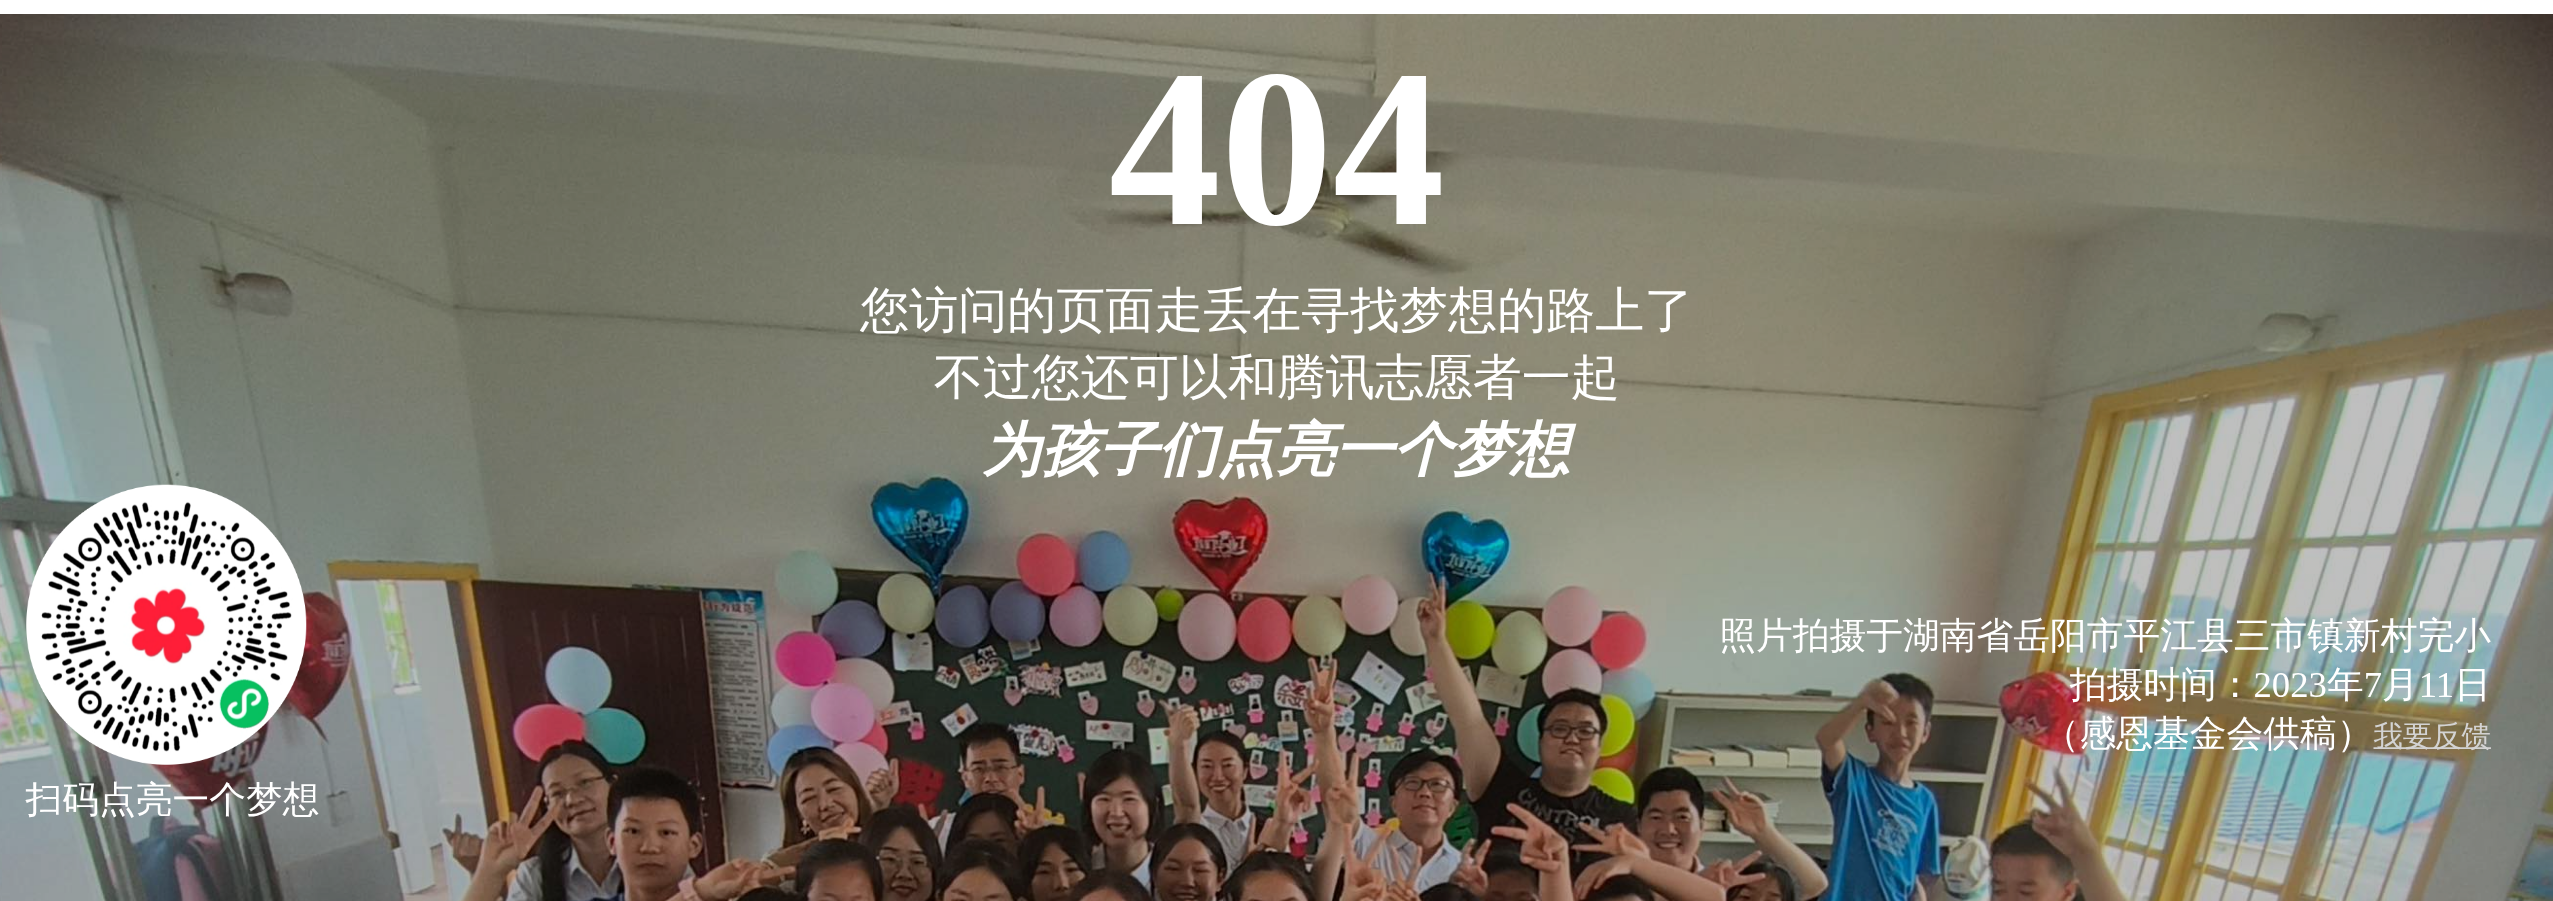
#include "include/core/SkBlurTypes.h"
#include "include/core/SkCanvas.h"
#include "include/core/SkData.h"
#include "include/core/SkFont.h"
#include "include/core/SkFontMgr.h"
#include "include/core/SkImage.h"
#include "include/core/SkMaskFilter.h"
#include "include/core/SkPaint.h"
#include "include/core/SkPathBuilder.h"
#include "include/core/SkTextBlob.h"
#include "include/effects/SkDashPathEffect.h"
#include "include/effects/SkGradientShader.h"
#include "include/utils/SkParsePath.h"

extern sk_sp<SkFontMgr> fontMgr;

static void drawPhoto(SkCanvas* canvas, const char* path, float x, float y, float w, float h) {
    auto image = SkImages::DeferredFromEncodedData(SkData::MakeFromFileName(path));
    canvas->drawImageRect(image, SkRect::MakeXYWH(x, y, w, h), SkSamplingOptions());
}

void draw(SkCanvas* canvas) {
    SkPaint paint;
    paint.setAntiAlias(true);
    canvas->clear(0xFFFFFFFF);
    drawPhoto(canvas, "assets/img1.png", 0, 14, 2553, 887);
}
